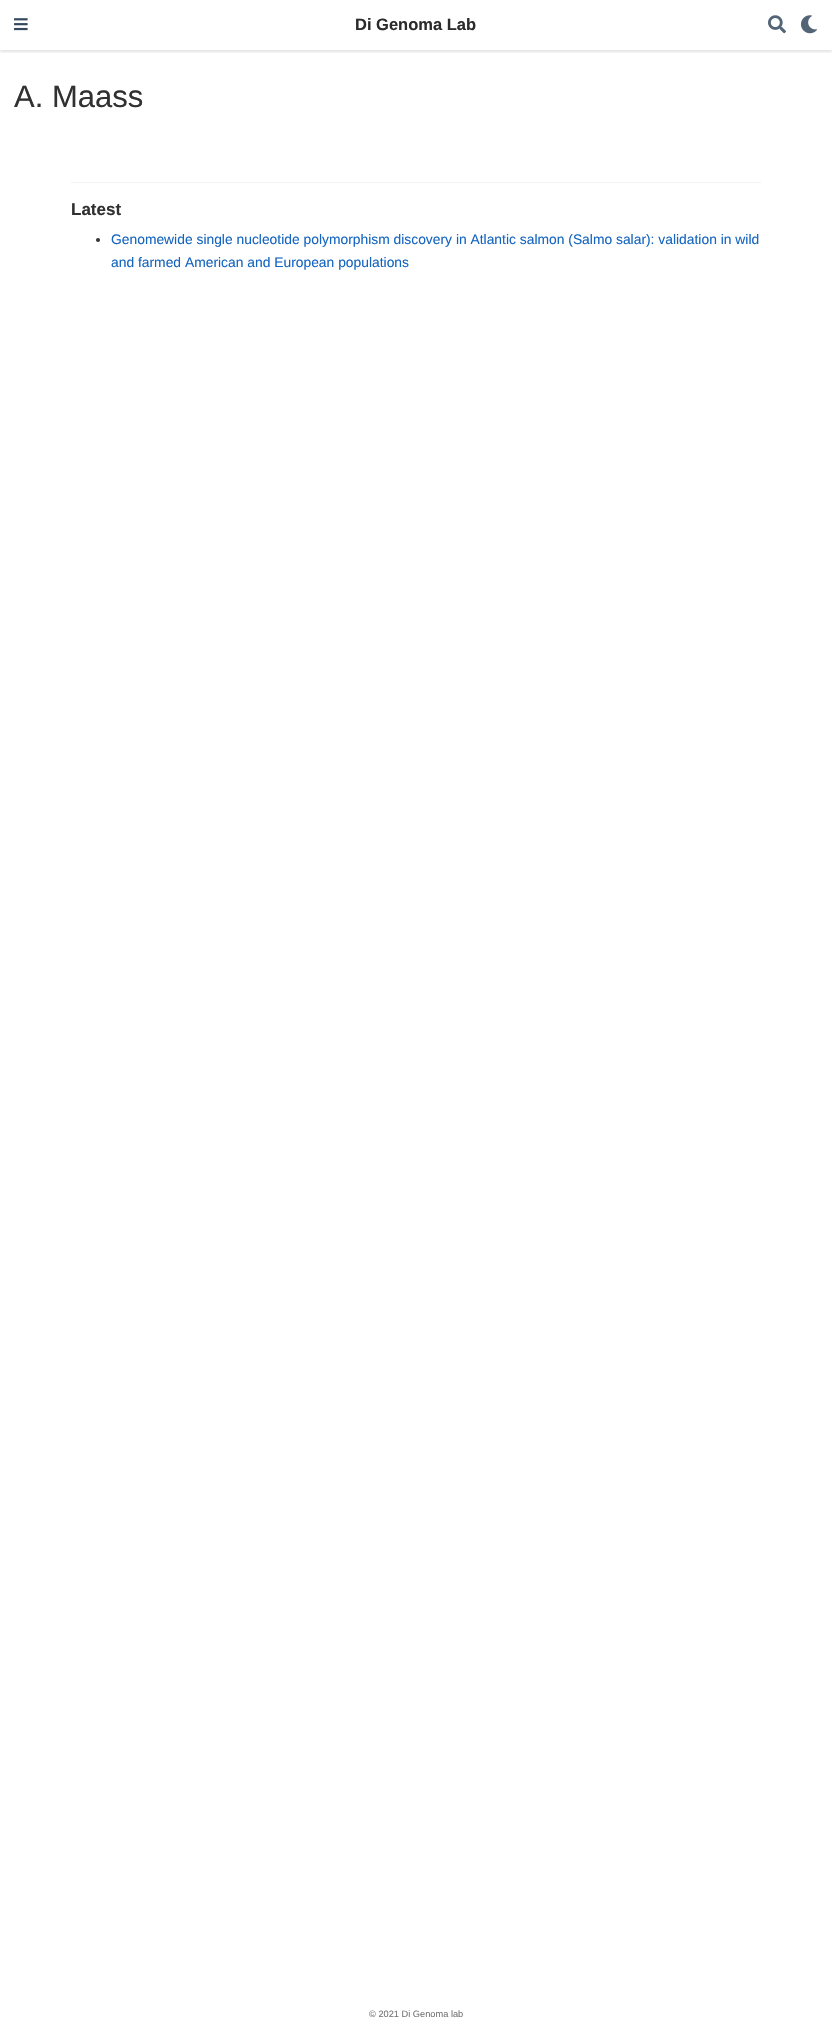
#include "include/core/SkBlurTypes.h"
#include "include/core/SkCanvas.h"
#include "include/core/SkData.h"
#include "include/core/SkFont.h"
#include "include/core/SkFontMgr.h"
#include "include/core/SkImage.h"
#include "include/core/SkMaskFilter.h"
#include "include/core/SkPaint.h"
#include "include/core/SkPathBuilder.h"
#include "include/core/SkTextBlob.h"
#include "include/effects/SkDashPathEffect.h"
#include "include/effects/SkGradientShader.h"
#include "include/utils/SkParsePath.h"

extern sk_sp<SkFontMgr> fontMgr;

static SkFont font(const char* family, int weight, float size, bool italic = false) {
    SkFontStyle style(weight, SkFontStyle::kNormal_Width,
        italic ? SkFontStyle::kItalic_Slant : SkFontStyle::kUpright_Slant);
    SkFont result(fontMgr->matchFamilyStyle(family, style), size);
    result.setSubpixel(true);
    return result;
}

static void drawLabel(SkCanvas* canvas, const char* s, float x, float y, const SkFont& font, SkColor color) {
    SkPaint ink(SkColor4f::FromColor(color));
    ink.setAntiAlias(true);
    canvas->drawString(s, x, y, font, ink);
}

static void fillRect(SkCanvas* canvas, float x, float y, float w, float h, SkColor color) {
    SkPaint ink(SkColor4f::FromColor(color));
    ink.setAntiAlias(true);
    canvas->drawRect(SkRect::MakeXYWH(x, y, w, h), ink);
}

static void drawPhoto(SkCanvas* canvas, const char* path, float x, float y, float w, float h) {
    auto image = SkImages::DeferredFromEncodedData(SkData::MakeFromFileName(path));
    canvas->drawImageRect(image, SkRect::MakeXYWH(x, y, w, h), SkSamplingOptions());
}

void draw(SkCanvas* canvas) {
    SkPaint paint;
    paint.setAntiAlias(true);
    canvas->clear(0xFFFFFFFF);
    canvas->save();
    canvas->clipRect(SkRect::MakeXYWH(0, 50, 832, 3));
    paint.setColor(0x1C000000);
    paint.setMaskFilter(SkMaskFilter::MakeBlur(kNormal_SkBlurStyle, 1.5f));
    canvas->drawRect(SkRect::MakeXYWH(0, 2, 832, 50), paint);
    paint.setMaskFilter(nullptr);
    canvas->restore();
    drawPhoto(canvas, "assets/img1.png", 14, 18, 14, 13);
    SkFont font1 = font("Liberation Sans", 700, 16.5f);
    drawLabel(canvas, "Di Genoma Lab", 355, 30, font1, 0xFF2B2B2B);
    drawPhoto(canvas, "assets/img2.png", 768, 15, 18, 19);
    drawPhoto(canvas, "assets/img3.png", 800, 15, 17, 19);
    SkFont font2 = font("Liberation Sans", 400, 31);
    drawLabel(canvas, "A. Maass", 14, 107, font2, 0xFF313131);
    fillRect(canvas, 71, 182, 690, 1, 0xFFF2F2F2);
    SkFont font3 = font("Liberation Sans", 700, 17);
    drawLabel(canvas, "Latest", 71, 215, font3, 0xFF313131);
    paint.setColor(0xFF333333);
    canvas->drawCircle(98, 240, 2, paint);
    SkFont font4 = font("Liberation Sans", 400, 13.85f);
    drawLabel(canvas, "Genomewide single nucleotide polymorphism discovery in Atlantic salmon (Salmo salar): validation in wild", 111, 244, font4, 0xFF1565C0);
    drawLabel(canvas, "and farmed American and European populations", 111, 267, font4, 0xFF1565C0);
    SkFont font5 = font("Liberation Sans", 400, 9.25f);
    drawLabel(canvas, "© 2021 Di Genoma lab", 369, 2017, font5, 0xFF757575);
}
